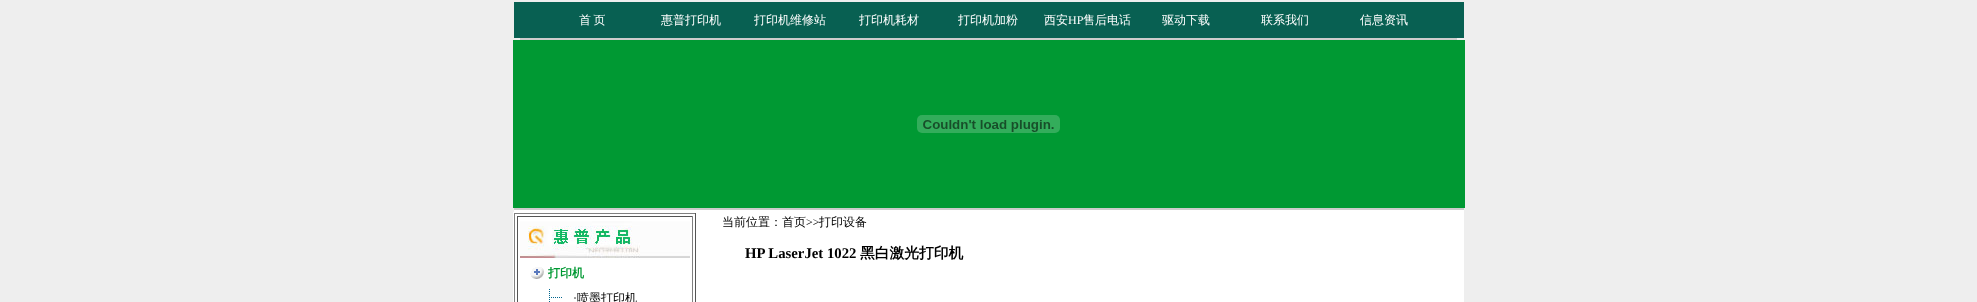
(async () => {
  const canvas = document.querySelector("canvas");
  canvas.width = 1977;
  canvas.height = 302;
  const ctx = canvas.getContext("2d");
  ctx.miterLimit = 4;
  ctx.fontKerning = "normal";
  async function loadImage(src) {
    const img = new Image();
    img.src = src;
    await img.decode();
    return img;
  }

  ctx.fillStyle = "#eeeeee";
  ctx.fillRect(0, 0, 1977, 302);
  for (const [x, y, w, h, color] of [
    [514, 2, 950, 36, "#086052"],
    [520, 38, 937, 2, "#cccccc"],
    [513, 40, 952, 168, "#009933"],
  ]) {
    ctx.fillStyle = color;
    ctx.fillRect(x, y, w, h);
  }
  ctx.drawImage(await loadImage("img/1.png"), 917, 115, 143, 18);
  for (const [x, y, w, h, color] of [
    [514, 208, 950, 2, "#cccccc"],
    [514, 210, 950, 2, "#ffffff"],
    [513, 212, 951, 90, "#ffffff"],
    [514, 213, 182, 1, "#808080"],
    [695, 213, 1, 89, "#555555"],
    [514, 213, 1, 89, "#808080"],
    [517, 216, 176, 1, "#555555"],
    [692, 216, 1, 86, "#808080"],
    [517, 216, 1, 86, "#555555"],
  ]) {
    ctx.fillStyle = color;
    ctx.fillRect(x, y, w, h);
  }
  ctx.drawImage(await loadImage("img/2.png"), 520, 221, 170, 37);
  ctx.drawImage(await loadImage("img/3.png"), 530, 267, 14, 12);
  ctx.drawImage(await loadImage("img/4.png"), 549, 289, 13, 13);
  ctx.wordSpacing = "-1px";
  ctx.font = "500 12px WenQuanYi Zen Hei";
  ctx.fillStyle = "#ffffff";
  ctx.fillText("首 页", 579, 24);
  ctx.wordSpacing = "0px";
  for (const [text, x, y] of [
    ["惠普打印机", 661, 24],
    ["打印机维修站", 754, 24],
    ["打印机耗材", 859, 24],
    ["打印机加粉", 958, 24],
    ["西安", 1044, 24],
  ]) {
    ctx.fillText(text, x, y);
  }
  ctx.font = "12px Liberation Serif";
  ctx.fillText("HP", 1068, 24);
  ctx.font = "500 12px WenQuanYi Zen Hei";
  for (const [text, x, y] of [
    ["售后电话", 1083, 24],
    ["驱动下载", 1162, 24],
    ["联系我们", 1261, 24],
    ["信息资讯", 1360, 24],
  ]) {
    ctx.fillText(text, x, y);
  }
  ctx.fillStyle = "#000000";
  ctx.fillText("当前位置：首页", 722, 226);
  ctx.font = "12px Liberation Serif";
  ctx.fillText(">>", 806, 226);
  ctx.font = "500 12px WenQuanYi Zen Hei";
  ctx.fillText("打印设备", 819, 226);
  ctx.font = "bold 14.75px Liberation Serif";
  ctx.fillText("HP LaserJet 1022", 745, 258);
  ctx.font = "bold 14.75px WenQuanYi Zen Hei";
  ctx.fillText("黑白激光打印机", 860, 258);
  ctx.font = "bold 12px WenQuanYi Zen Hei";
  ctx.fillStyle = "#009933";
  ctx.fillText("打印机", 548, 277);
  ctx.font = "12px Liberation Serif";
  ctx.fillStyle = "#000000";
  ctx.fillText("·", 573, 302);
  ctx.font = "500 12px WenQuanYi Zen Hei";
  ctx.fillText("喷墨打印机", 577, 302);
})();
